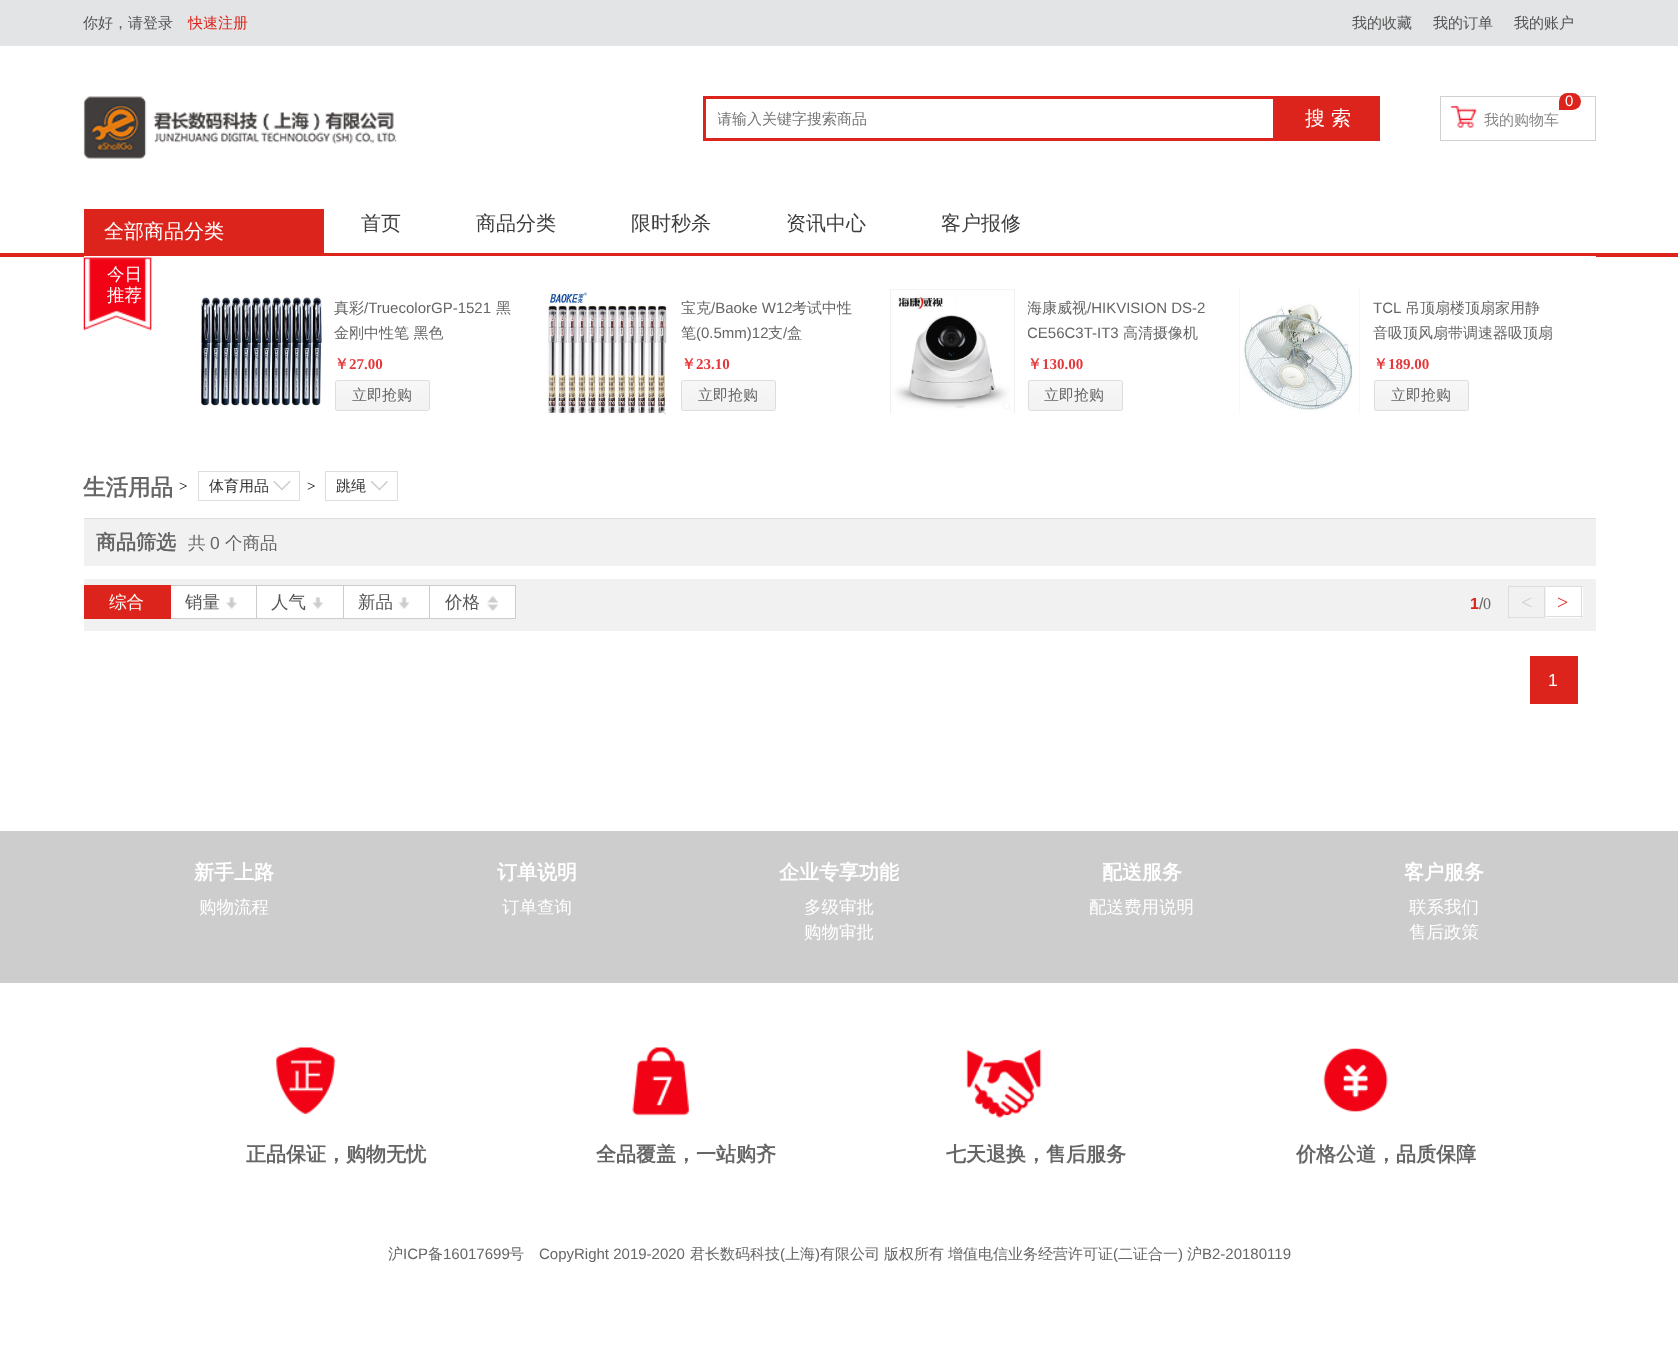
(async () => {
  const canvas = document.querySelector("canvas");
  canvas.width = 1678;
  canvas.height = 1359;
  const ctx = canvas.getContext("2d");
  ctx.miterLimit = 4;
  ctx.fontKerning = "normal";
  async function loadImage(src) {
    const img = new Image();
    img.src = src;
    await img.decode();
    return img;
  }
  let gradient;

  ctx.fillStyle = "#ffffff";
  ctx.fillRect(0, 0, 1678, 1359);
  ctx.fillStyle = "#e3e4e5";
  ctx.fillRect(0, 0, 1678, 46);
  ctx.drawImage(await loadImage("img/1.png"), 83, 96, 314, 63);
  ctx.strokeStyle = "#dc241c";
  ctx.lineWidth = 3;
  ctx.strokeRect(704.5, 97.5, 570, 42);
  ctx.fillStyle = "#dc241c";
  ctx.fillRect(1276, 96, 104, 45);
  ctx.strokeStyle = "#d1d1d1";
  ctx.lineWidth = 1;
  ctx.strokeRect(1440.5, 96.5, 155, 44);
  ctx.beginPath();
  ctx.roundRect(1559, 93, 22, 17, [8.5, 8.5, 8.5, 0]);
  ctx.fill();
  ctx.drawImage(await loadImage("img/2.png"), 1451, 106, 26, 22);
  for (const [x, y, w, h, color] of [
    [0, 253, 1678, 4, "#dc241c"],
    [84, 209, 240, 44, "#dc241c"],
    [84, 256, 1512, 1, "#ffffff"],
  ]) {
    ctx.fillStyle = color;
    ctx.fillRect(x, y, w, h);
  }
  ctx.drawImage(await loadImage("img/3.png"), 83, 257, 69, 74);
  ctx.drawImage(await loadImage("img/4.png"), 201, 297, 121, 110);
  ctx.save();
  ctx.beginPath();
  ctx.roundRect(335, 380, 95, 31, 2.5);
  ctx.clip();
  gradient = ctx.createLinearGradient(383, 381, 383, 410);
  gradient.addColorStop(0, "#f7f7f7");
  gradient.addColorStop(1, "#f2f2f2");
  ctx.fillStyle = gradient;
  ctx.fillRect(335, 381, 95, 29);
  ctx.restore();
  ctx.beginPath();
  ctx.roundRect(335.5, 380.5, 94, 30, 2);
  ctx.strokeStyle = "#dddddd";
  ctx.stroke();
  ctx.drawImage(await loadImage("img/5.png"), 547, 291, 120, 123);
  ctx.save();
  ctx.beginPath();
  ctx.roundRect(681, 380, 95, 31, 2.5);
  ctx.clip();
  gradient = ctx.createLinearGradient(729, 381, 729, 410);
  gradient.addColorStop(0, "#f7f7f7");
  gradient.addColorStop(1, "#f2f2f2");
  ctx.fillStyle = gradient;
  ctx.fillRect(681, 381, 95, 29);
  ctx.restore();
  ctx.beginPath();
  ctx.roundRect(681.5, 380.5, 94, 30, 2);
  ctx.stroke();
  ctx.drawImage(await loadImage("img/6.png"), 890, 289, 125, 125);
  ctx.save();
  ctx.beginPath();
  ctx.roundRect(1028, 380, 95, 31, 2.5);
  ctx.clip();
  gradient = ctx.createLinearGradient(1075, 381, 1075, 410);
  gradient.addColorStop(0, "#f7f7f7");
  gradient.addColorStop(1, "#f2f2f2");
  ctx.fillStyle = gradient;
  ctx.fillRect(1028, 381, 95, 29);
  ctx.restore();
  ctx.beginPath();
  ctx.roundRect(1028.5, 380.5, 94, 30, 2);
  ctx.stroke();
  ctx.drawImage(await loadImage("img/7.png"), 1239, 289, 121, 125);
  ctx.save();
  ctx.beginPath();
  ctx.roundRect(1374, 380, 95, 31, 2.5);
  ctx.clip();
  gradient = ctx.createLinearGradient(1421, 381, 1421, 410);
  gradient.addColorStop(0, "#f7f7f7");
  gradient.addColorStop(1, "#f2f2f2");
  ctx.fillStyle = gradient;
  ctx.fillRect(1374, 381, 95, 29);
  ctx.restore();
  ctx.beginPath();
  ctx.roundRect(1374.5, 380.5, 94, 30, 2);
  ctx.stroke();
  ctx.strokeRect(198.5, 471.5, 101, 29);
  ctx.drawImage(await loadImage("img/8.png"), 273, 481, 18, 10);
  ctx.strokeRect(325.5, 471.5, 72, 29);
  ctx.drawImage(await loadImage("img/9.png"), 371, 481, 17, 10);
  for (const [x, y, w, h, color] of [
    [84, 519, 1512, 47, "#f1f1f1"],
    [84, 518, 1512, 1, "#dfdfdf"],
    [84, 579, 1512, 52, "#f1f1f1"],
    [84, 585, 87, 34, "#dc241c"],
    [171, 586, 172, 32, "#ffffff"],
    [171, 585, 345, 1, "#cccccc"],
    [256, 585, 1, 34, "#cccccc"],
    [171, 618, 87, 1, "#cccccc"],
  ]) {
    ctx.fillStyle = color;
    ctx.fillRect(x, y, w, h);
  }
  ctx.drawImage(await loadImage("img/10.png"), 226, 597, 11, 12);
  ctx.fillRect(343, 585, 1, 34);
  ctx.fillRect(258, 618, 86, 1);
  ctx.drawImage(await loadImage("img/11.png"), 312, 597, 12, 12);
  for (const [x, y, w, h, color] of [
    [344, 586, 85, 32, "#ffffff"],
    [429, 585, 1, 34, "#cccccc"],
    [344, 618, 86, 1, "#cccccc"],
  ]) {
    ctx.fillStyle = color;
    ctx.fillRect(x, y, w, h);
  }
  ctx.drawImage(await loadImage("img/12.png"), 398, 597, 12, 12);
  for (const [x, y, w, h, color] of [
    [430, 586, 85, 32, "#ffffff"],
    [515, 585, 1, 34, "#cccccc"],
    [430, 618, 86, 1, "#cccccc"],
  ]) {
    ctx.fillStyle = color;
    ctx.fillRect(x, y, w, h);
  }
  ctx.drawImage(await loadImage("img/13.png"), 487, 596, 12, 16);
  ctx.strokeRect(1508.5, 586.5, 36, 31);
  for (const [x, y, w, h, color] of [
    [1546, 587, 37, 31, "#ffffff"],
    [1546, 586, 37, 1, "#dddddd"],
    [1581, 586, 1, 32, "#dddddd"],
    [1546, 616, 37, 1, "#dddddd"],
    [1530, 656, 48, 48, "#dc241c"],
    [0, 831, 1678, 152, "#cdcdcd"],
  ]) {
    ctx.fillStyle = color;
    ctx.fillRect(x, y, w, h);
  }
  ctx.drawImage(await loadImage("img/14.png"), 276, 1047, 60, 67);
  ctx.drawImage(await loadImage("img/15.png"), 632, 1047, 58, 69);
  ctx.drawImage(await loadImage("img/16.png"), 966, 1049, 76, 69);
  ctx.drawImage(await loadImage("img/17.png"), 1323, 1048, 65, 64);
  ctx.font = "500 15px WenQuanYi Zen Hei";
  ctx.fillStyle = "#555555";
  ctx.fillText("你好，请登录", 83, 28);
  ctx.fillStyle = "#dc241c";
  ctx.fillText("快速注册", 188, 28);
  ctx.fillStyle = "#555555";
  for (const [text, x, y] of [
    ["我的收藏", 1352, 28],
    ["我的订单", 1433, 28],
    ["我的账户", 1514, 28],
  ]) {
    ctx.fillText(text, x, y);
  }
  ctx.save();
  ctx.beginPath();
  ctx.rect(718, 109, 556, 21);
  ctx.clip();
  ctx.fillStyle = "#757575";
  ctx.fillText("请输入关键字搜索商品", 717, 124);
  ctx.restore();
  ctx.font = "500 20px WenQuanYi Zen Hei";
  ctx.fillStyle = "#ffffff";
  ctx.fillText("搜 索", 1305, 125);
  ctx.font = "15px Liberation Sans";
  ctx.fillText("0", 1565, 106);
  ctx.font = "500 15px WenQuanYi Zen Hei";
  ctx.fillStyle = "#888888";
  ctx.fillText("我的购物车", 1484, 125);
  ctx.font = "500 20px WenQuanYi Zen Hei";
  ctx.fillStyle = "#ffffff";
  ctx.fillText("全部商品分类", 104, 238);
  ctx.fillStyle = "#3e3e3e";
  for (const [text, x, y] of [
    ["首页", 361, 230],
    ["商品分类", 476, 230],
    ["限时秒杀", 631, 230],
    ["资讯中心", 786, 230],
    ["客户报修", 941, 230],
  ]) {
    ctx.fillText(text, x, y);
  }
  ctx.font = "500 17.5px WenQuanYi Zen Hei";
  ctx.fillStyle = "#ffffff";
  ctx.fillText("今日", 107, 280);
  ctx.fillText("推荐", 107, 301);
  ctx.font = "500 15px WenQuanYi Zen Hei";
  ctx.fillStyle = "#666666";
  ctx.fillText("真彩", 334, 313);
  ctx.font = "15px Liberation Sans";
  ctx.fillText("/TruecolorGP-1521", 364, 313);
  ctx.font = "500 15px WenQuanYi Zen Hei";
  ctx.fillText("黑", 496, 313);
  ctx.fillText("金刚中性笔 黑色", 334, 338);
  ctx.font = "bold 15px WenQuanYi Zen Hei";
  ctx.fillStyle = "#e4393c";
  ctx.fillText("￥", 334, 369);
  ctx.font = "bold 15px Liberation Serif";
  ctx.fillText("27.00", 349, 369);
  ctx.font = "500 15px WenQuanYi Zen Hei";
  ctx.fillStyle = "#666666";
  ctx.fillText("立即抢购", 352, 400);
  ctx.fillText("宝克", 681, 313);
  ctx.font = "15px Liberation Sans";
  ctx.fillText("/Baoke W12", 711, 313);
  ctx.font = "500 15px WenQuanYi Zen Hei";
  ctx.fillText("考试中性", 792, 313);
  ctx.fillText("笔", 681, 338);
  ctx.font = "15px Liberation Sans";
  ctx.fillText("(0.5mm)12", 696, 338);
  ctx.font = "500 15px WenQuanYi Zen Hei";
  ctx.fillText("支", 768, 338);
  ctx.font = "15px Liberation Sans";
  ctx.fillText("/", 783, 338);
  ctx.font = "500 15px WenQuanYi Zen Hei";
  ctx.fillText("盒", 787, 338);
  ctx.font = "bold 15px WenQuanYi Zen Hei";
  ctx.fillStyle = "#e4393c";
  ctx.fillText("￥", 681, 369);
  ctx.font = "bold 15px Liberation Serif";
  ctx.fillText("23.10", 696, 369);
  ctx.font = "500 15px WenQuanYi Zen Hei";
  ctx.fillStyle = "#666666";
  ctx.fillText("立即抢购", 698, 400);
  ctx.save();
  ctx.beginPath();
  ctx.rect(1028, 289, 181, 56);
  ctx.clip();
  ctx.fillText("海康威视", 1027, 313);
  ctx.restore();
  ctx.font = "15px Liberation Sans";
  ctx.fillText("/HIKVISION DS-2", 1087, 313);
  ctx.save();
  ctx.beginPath();
  ctx.rect(1028, 289, 181, 56);
  ctx.clip();
  ctx.fillText("CE56C3T-IT3", 1027, 338);
  ctx.restore();
  ctx.font = "500 15px WenQuanYi Zen Hei";
  ctx.fillText("高清摄像机", 1123, 338);
  ctx.font = "bold 15px WenQuanYi Zen Hei";
  ctx.fillStyle = "#e4393c";
  ctx.fillText("￥", 1027, 369);
  ctx.font = "bold 15px Liberation Serif";
  ctx.fillText("130.00", 1042, 369);
  ctx.font = "500 15px WenQuanYi Zen Hei";
  ctx.fillStyle = "#666666";
  ctx.fillText("立即抢购", 1044, 400);
  ctx.font = "15px Liberation Sans";
  ctx.fillText("TCL", 1373, 313);
  ctx.font = "500 15px WenQuanYi Zen Hei";
  ctx.fillText("吊顶扇楼顶扇家用静", 1405, 313);
  ctx.fillText("音吸顶风扇带调速器吸顶扇", 1373, 338);
  ctx.font = "bold 15px WenQuanYi Zen Hei";
  ctx.fillStyle = "#e4393c";
  ctx.fillText("￥", 1373, 369);
  ctx.font = "bold 15px Liberation Serif";
  ctx.fillText("189.00", 1388, 369);
  ctx.font = "500 15px WenQuanYi Zen Hei";
  ctx.fillStyle = "#666666";
  ctx.fillText("立即抢购", 1391, 400);
  ctx.font = "bold 22.5px WenQuanYi Zen Hei";
  ctx.fillText("生活用品", 83, 495);
  ctx.font = "15px Liberation Serif";
  ctx.fillStyle = "#000000";
  ctx.fillText(">", 179, 491);
  ctx.font = "500 15px WenQuanYi Zen Hei";
  ctx.fillStyle = "#333333";
  ctx.fillText("体育用品", 209, 491);
  ctx.font = "15px Liberation Serif";
  ctx.fillStyle = "#000000";
  ctx.fillText(">", 307, 491);
  ctx.font = "500 15px WenQuanYi Zen Hei";
  ctx.fillStyle = "#333333";
  ctx.fillText("跳绳", 336, 491);
  ctx.font = "bold 20px WenQuanYi Zen Hei";
  ctx.fillStyle = "#666666";
  ctx.fillText("商品筛选", 96, 549);
  ctx.font = "500 17.5px WenQuanYi Zen Hei";
  ctx.fillText("共", 188, 549);
  ctx.font = "17.5px Liberation Sans";
  ctx.fillText("0", 210, 549);
  ctx.font = "500 17.5px WenQuanYi Zen Hei";
  ctx.fillText("个商品", 225, 549);
  ctx.fillStyle = "#ffffff";
  ctx.fillText("综合", 109, 608);
  ctx.fillStyle = "#555555";
  for (const [text, x, y] of [
    ["销量", 185, 608],
    ["人气", 271, 608],
    ["新品", 358, 608],
    ["价格", 445, 608],
  ]) {
    ctx.fillText(text, x, y);
  }
  ctx.font = "bold 16px Liberation Sans";
  ctx.fillStyle = "#dc241c";
  ctx.fillText("1", 1470, 609);
  ctx.font = "16px Liberation Sans";
  ctx.fillStyle = "#666666";
  ctx.fillText("/", 1479, 609);
  ctx.font = "16px Liberation Serif";
  ctx.fillText("0", 1483, 609);
  ctx.font = "20px Liberation Serif";
  ctx.fillStyle = "#cccccc";
  ctx.fillText("<", 1521, 609);
  ctx.fillStyle = "#dc241c";
  ctx.fillText(">", 1557, 609);
  ctx.font = "17.5px Liberation Sans";
  ctx.fillStyle = "#ffffff";
  ctx.fillText("1", 1548, 686);
  ctx.font = "bold 20px WenQuanYi Zen Hei";
  ctx.fillText("新手上路", 194, 879);
  ctx.font = "500 17.5px WenQuanYi Zen Hei";
  ctx.fillText("购物流程", 199, 913);
  ctx.font = "bold 20px WenQuanYi Zen Hei";
  ctx.fillText("订单说明", 497, 879);
  ctx.font = "500 17.5px WenQuanYi Zen Hei";
  ctx.fillText("订单查询", 502, 913);
  ctx.font = "bold 20px WenQuanYi Zen Hei";
  ctx.fillText("企业专享功能", 779, 879);
  ctx.font = "500 17.5px WenQuanYi Zen Hei";
  ctx.fillText("多级审批", 804, 913);
  ctx.fillText("购物审批", 804, 938);
  ctx.font = "bold 20px WenQuanYi Zen Hei";
  ctx.fillText("配送服务", 1102, 879);
  ctx.font = "500 17.5px WenQuanYi Zen Hei";
  ctx.fillText("配送费用说明", 1089, 913);
  ctx.font = "bold 20px WenQuanYi Zen Hei";
  ctx.fillText("客户服务", 1404, 879);
  ctx.font = "500 17.5px WenQuanYi Zen Hei";
  ctx.fillText("联系我们", 1409, 913);
  ctx.fillText("售后政策", 1409, 938);
  ctx.font = "bold 20px WenQuanYi Zen Hei";
  ctx.fillStyle = "#666666";
  for (const [text, x, y] of [
    ["正品保证，购物无忧", 246, 1161],
    ["全品覆盖，一站购齐", 596, 1161],
    ["七天退换，售后服务", 946, 1161],
    ["价格公道，品质保障", 1296, 1161],
  ]) {
    ctx.fillText(text, x, y);
  }
  ctx.font = "500 15px WenQuanYi Zen Hei";
  ctx.fillText("沪", 388, 1259);
  ctx.font = "15px Liberation Sans";
  ctx.fillText("ICP", 403, 1259);
  ctx.font = "500 15px WenQuanYi Zen Hei";
  ctx.fillText("备", 428, 1259);
  ctx.font = "15px Liberation Sans";
  ctx.fillText("16017699", 443, 1259);
  ctx.font = "500 15px WenQuanYi Zen Hei";
  ctx.fillText("号", 509, 1259);
  ctx.font = "15px Liberation Sans";
  ctx.fillText("CopyRight 2019-2020", 539, 1259);
  ctx.font = "500 15px WenQuanYi Zen Hei";
  ctx.fillText("君长数码科技", 690, 1259);
  ctx.font = "15px Liberation Sans";
  ctx.fillText("(", 780, 1259);
  ctx.font = "500 15px WenQuanYi Zen Hei";
  ctx.fillText("上海", 785, 1259);
  ctx.font = "15px Liberation Sans";
  ctx.fillText(")", 815, 1259);
  ctx.font = "500 15px WenQuanYi Zen Hei";
  for (const [text, x, y] of [
    ["有限公司", 820, 1259],
    ["版权所有", 884, 1259],
    ["增值电信业务经营许可证", 948, 1259],
  ]) {
    ctx.fillText(text, x, y);
  }
  ctx.font = "15px Liberation Sans";
  ctx.fillText("(", 1113, 1259);
  ctx.font = "500 15px WenQuanYi Zen Hei";
  ctx.fillText("二证合一", 1118, 1259);
  ctx.font = "15px Liberation Sans";
  ctx.fillText(")", 1178, 1259);
  ctx.font = "500 15px WenQuanYi Zen Hei";
  ctx.fillText("沪", 1187, 1259);
  ctx.font = "15px Liberation Sans";
  ctx.fillText("B2-20180119", 1202, 1259);
})();
